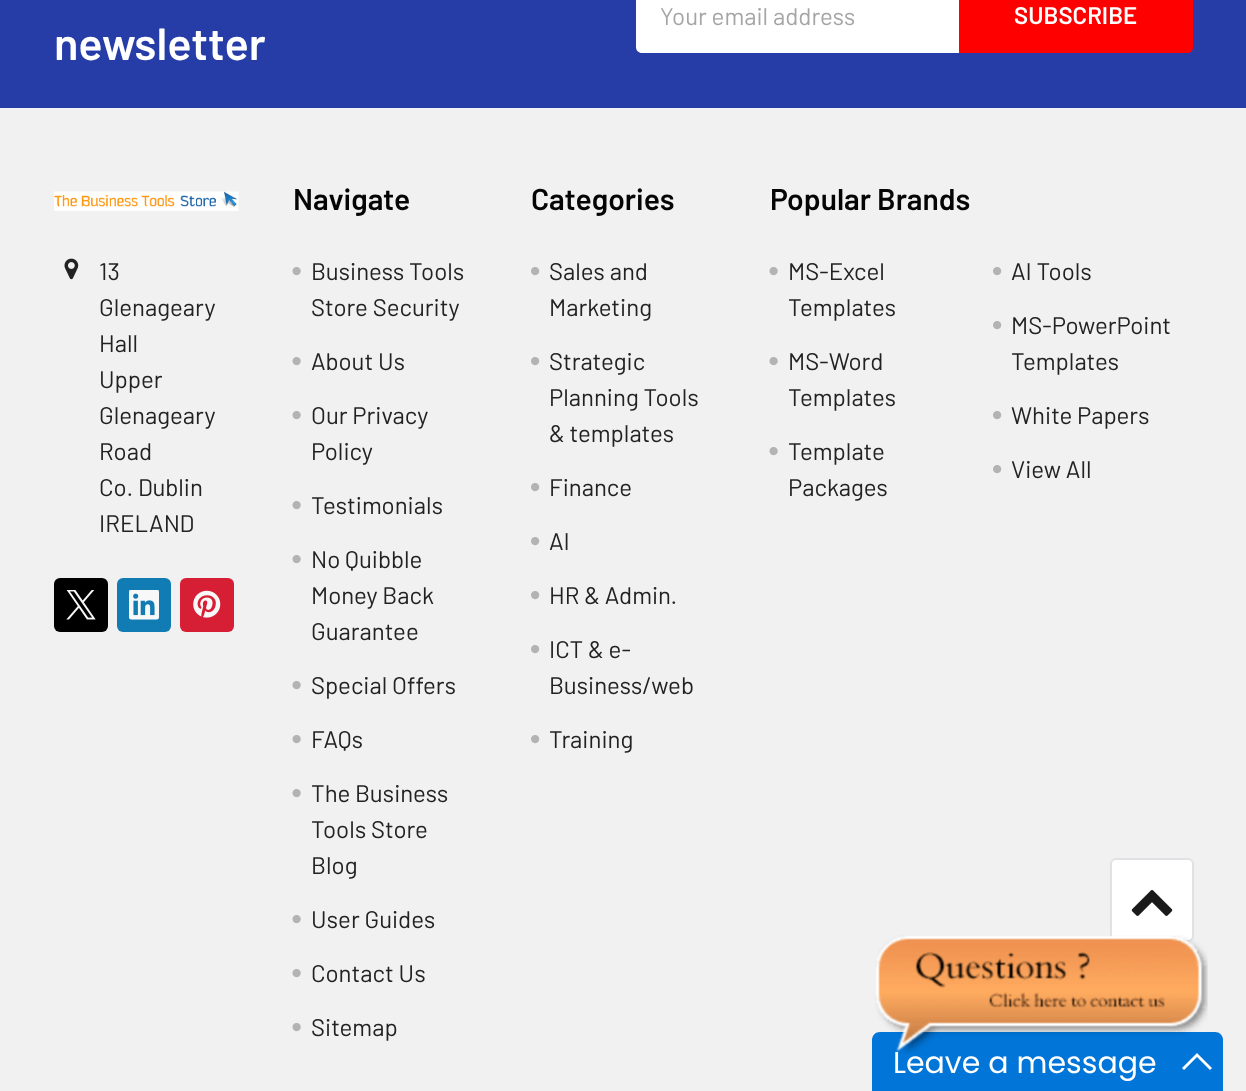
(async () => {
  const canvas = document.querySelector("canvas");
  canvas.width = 1246;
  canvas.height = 1091;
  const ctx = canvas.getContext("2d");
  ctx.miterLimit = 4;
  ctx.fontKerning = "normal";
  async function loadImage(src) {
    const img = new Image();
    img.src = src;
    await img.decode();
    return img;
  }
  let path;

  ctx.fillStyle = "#f1f1f2";
  ctx.fillRect(0, 0, 1246, 1091);
  ctx.fillStyle = "#263da8";
  ctx.fillRect(0, 0, 1246, 108);
  ctx.fillStyle = "#ffffff";
  path = new Path2D("M642-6H959V53H642C638.5 53 636 50.5 636 47V0C636-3.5 638.5-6 642-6Z");
  ctx.fill(path);
  ctx.fillStyle = "#ff0000";
  path = new Path2D("M960-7H1187C1190-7 1192-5 1192-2V47C1192 50 1190 52 1187 52H960Z");
  ctx.fill(path);
  ctx.strokeStyle = "#ff0000";
  ctx.lineWidth = 2;
  ctx.stroke(path);
  ctx.drawImage(await loadImage("img/1.png"), 54, 191, 185, 20);
  ctx.drawImage(await loadImage("img/2.png"), 64, 258, 15, 22);
  ctx.fillStyle = "#000000";
  ctx.beginPath();
  ctx.roundRect(54, 578, 54, 54, 6);
  ctx.fill();
  ctx.drawImage(await loadImage("img/3.png"), 66, 590, 30, 30);
  ctx.fillStyle = "#117cb3";
  ctx.beginPath();
  ctx.roundRect(117, 578, 54, 54, 6);
  ctx.fill();
  ctx.drawImage(await loadImage("img/4.png"), 129, 590, 30, 30);
  ctx.fillStyle = "#d61f35";
  ctx.beginPath();
  ctx.roundRect(180, 578, 54, 54, 6);
  ctx.fill();
  ctx.drawImage(await loadImage("img/5.png"), 193, 590, 28, 28);
  ctx.drawImage(await loadImage("img/6.png"), 292, 267, 9, 9);
  ctx.drawImage(await loadImage("img/6.png"), 292, 357, 9, 9);
  ctx.drawImage(await loadImage("img/6.png"), 292, 411, 9, 9);
  ctx.drawImage(await loadImage("img/6.png"), 292, 501, 9, 9);
  ctx.drawImage(await loadImage("img/6.png"), 292, 555, 9, 9);
  ctx.drawImage(await loadImage("img/6.png"), 292, 681, 9, 9);
  ctx.drawImage(await loadImage("img/6.png"), 292, 735, 9, 9);
  ctx.drawImage(await loadImage("img/6.png"), 292, 789, 9, 9);
  ctx.drawImage(await loadImage("img/6.png"), 292, 915, 9, 9);
  ctx.drawImage(await loadImage("img/6.png"), 292, 969, 9, 9);
  ctx.drawImage(await loadImage("img/6.png"), 292, 1023, 9, 9);
  ctx.drawImage(await loadImage("img/7.png"), 531, 267, 9, 9);
  ctx.drawImage(await loadImage("img/7.png"), 531, 357, 9, 9);
  ctx.drawImage(await loadImage("img/7.png"), 531, 483, 9, 9);
  ctx.drawImage(await loadImage("img/7.png"), 531, 537, 9, 9);
  ctx.drawImage(await loadImage("img/7.png"), 531, 591, 9, 9);
  ctx.drawImage(await loadImage("img/7.png"), 531, 645, 9, 9);
  ctx.drawImage(await loadImage("img/7.png"), 531, 735, 9, 9);
  ctx.drawImage(await loadImage("img/6.png"), 769, 267, 9, 9);
  ctx.drawImage(await loadImage("img/7.png"), 993, 267, 9, 9);
  ctx.drawImage(await loadImage("img/7.png"), 993, 321, 9, 9);
  ctx.drawImage(await loadImage("img/6.png"), 769, 357, 9, 9);
  ctx.drawImage(await loadImage("img/7.png"), 993, 411, 9, 9);
  ctx.drawImage(await loadImage("img/6.png"), 769, 447, 9, 9);
  ctx.drawImage(await loadImage("img/7.png"), 993, 465, 9, 9);
  ctx.fillStyle = "#ffffff";
  ctx.beginPath();
  ctx.roundRect(1111, 859, 82, 82, 5);
  ctx.fill();
  ctx.strokeStyle = "#e0e1e4";
  ctx.stroke();
  ctx.drawImage(await loadImage("img/8.png"), 1131, 890, 42, 26);
  ctx.fillStyle = "#0275d8";
  path = new Path2D("M880 1032H1215C1219.5 1032 1223 1035.5 1223 1040V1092H872V1040C872 1035.5 875.5 1032 880 1032Z");
  ctx.fill(path);
  ctx.fillStyle = "#ffffff";
  path = new Path2D("M1197 1053L1212 1068L1210 1070L1197 1057L1184 1070L1182 1068Z");
  ctx.fill(path);
  ctx.font = "24px Barlow";
  ctx.fillStyle = "#a5a5a5";
  ctx.fillText("Your email address", 660, 25);
  ctx.font = "600 24px Barlow";
  ctx.fillStyle = "#ffffff";
  ctx.fillText("SUBSCRIBE", 1014, 24);
  ctx.font = "600 45px Barlow";
  ctx.fillText("newsletter", 54, 60);
  ctx.font = "24px Barlow";
  ctx.fillStyle = "#222222";
  for (const [text, x, y] of [
    ["13", 99, 280],
    ["Glenageary", 99, 316],
    ["Hall", 99, 352],
    ["Upper", 99, 388],
    ["Glenageary", 99, 424],
    ["Road", 99, 460],
    ["Co. Dublin", 99, 496],
    ["IRELAND", 99, 532],
  ]) {
    ctx.fillText(text, x, y);
  }
  ctx.font = "600 30px Barlow";
  ctx.fillStyle = "#050505";
  ctx.fillText("Navigate", 293, 210);
  ctx.font = "24px Barlow";
  ctx.fillStyle = "#222222";
  for (const [text, x, y] of [
    ["Business Tools", 311, 280],
    ["Store Security", 311, 316],
    ["About Us", 311, 370],
    ["Our Privacy", 311, 424],
    ["Policy", 311, 460],
    ["Testimonials", 311, 514],
    ["No Quibble", 311, 568],
    ["Money Back", 311, 604],
    ["Guarantee", 311, 640],
    ["Special Offers", 311, 694],
    ["FAQs", 311, 748],
    ["The Business", 311, 802],
    ["Tools Store", 311, 838],
    ["Blog", 311, 874],
    ["User Guides", 311, 928],
    ["Contact Us", 311, 982],
    ["Sitemap", 311, 1036],
  ]) {
    ctx.fillText(text, x, y);
  }
  ctx.font = "600 30px Barlow";
  ctx.fillStyle = "#050505";
  ctx.fillText("Categories", 531, 210);
  ctx.font = "24px Barlow";
  ctx.fillStyle = "#222222";
  for (const [text, x, y] of [
    ["Sales and", 549, 280],
    ["Marketing", 549, 316],
    ["Strategic", 549, 370],
    ["Planning Tools", 549, 406],
    ["& templates", 549, 442],
    ["Finance", 549, 496],
    ["AI", 549, 550],
    ["HR & Admin.", 549, 604],
    ["ICT & e-", 549, 658],
    ["Business/web", 549, 694],
    ["Training", 549, 748],
  ]) {
    ctx.fillText(text, x, y);
  }
  ctx.font = "600 30px Barlow";
  ctx.fillStyle = "#050505";
  ctx.fillText("Popular Brands", 770, 210);
  ctx.font = "24px Barlow";
  ctx.fillStyle = "#222222";
  for (const [text, x, y] of [
    ["MS-Excel", 788, 280],
    ["Templates", 788, 316],
    ["AI Tools", 1011, 280],
    ["MS-PowerPoint", 1011, 334],
    ["Templates", 1011, 370],
    ["MS-Word", 788, 370],
    ["Templates", 788, 406],
    ["White Papers", 1011, 424],
    ["Template", 788, 460],
    ["Packages", 788, 496],
    ["View All", 1011, 478],
  ]) {
    ctx.fillText(text, x, y);
  }
  ctx.font = "30px Poppins";
  ctx.fillStyle = "#ffffff";
  ctx.fillText("Leave a message", 893, 1073);
  ctx.drawImage(await loadImage("img/9.png"), 875, 935, 333, 119);
})();
